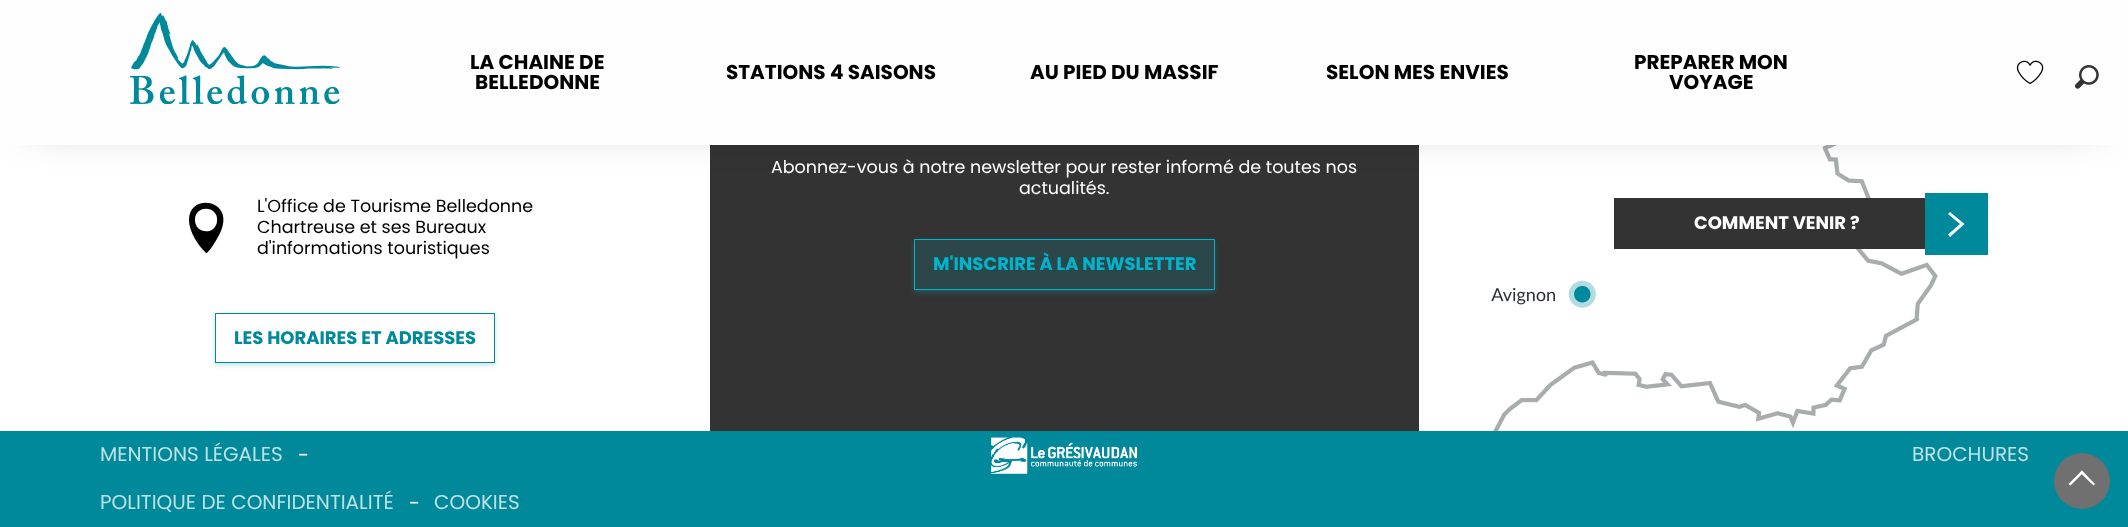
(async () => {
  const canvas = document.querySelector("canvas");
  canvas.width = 2128;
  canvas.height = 527;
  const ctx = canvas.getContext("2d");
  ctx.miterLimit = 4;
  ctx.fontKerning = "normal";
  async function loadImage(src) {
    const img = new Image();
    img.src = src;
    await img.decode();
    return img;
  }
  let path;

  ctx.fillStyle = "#ffffff";
  ctx.fillRect(0, 0, 2128, 527);
  ctx.fillStyle = "#333333";
  ctx.fillRect(710, 145, 709, 286);
  ctx.drawImage(await loadImage("img/4.png"), 1491, 145, 447, 286);
  ctx.fillStyle = "rgba(0, 0, 0, 0.5)";
  ctx.filter = "blur(25px)";
  ctx.beginPath();
  ctx.rect(31, 31, 2067, 83);
  ctx.fill();
  ctx.filter = "none";
  ctx.fillStyle = "#fefefe";
  ctx.fillRect(0, 0, 2128, 145);
  ctx.drawImage(await loadImage("img/1.png"), 130, 13, 210, 91);
  ctx.drawImage(await loadImage("img/2.png"), 2016, 60, 28, 24);
  ctx.drawImage(await loadImage("img/3.png"), 2075, 65, 24, 24);
  ctx.fillStyle = "#000000";
  path = new Path2D("M207 253H206C198 245 189 232 189 220C189 191 240 200 218 237C215 242 212 248 207 253ZM195 219C194 234 216 236 217 221C219 206 196 204 195 219Z");
  ctx.fill(path);
  ctx.save();
  path = new Path2D("M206 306H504V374H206ZM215 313H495V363H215Z");
  ctx.clip(path, "evenodd");
  ctx.fillStyle = "rgba(0, 136, 155, 0.25)";
  ctx.filter = "blur(2.5px)";
  ctx.beginPath();
  ctx.rect(215, 315, 280, 50);
  ctx.fill();
  ctx.filter = "none";
  ctx.restore();
  ctx.strokeStyle = "#00889b";
  ctx.strokeRect(215.5, 313.5, 279, 49);
  ctx.fillStyle = "rgba(0, 181, 206, 0.25)";
  ctx.filter = "blur(2.5px)";
  ctx.beginPath();
  ctx.rect(914, 241, 301, 52);
  ctx.fill();
  ctx.filter = "none";
  ctx.fillStyle = "#2b474a";
  ctx.beginPath();
  ctx.rect(914.5, 239.5, 300, 50);
  ctx.fill();
  ctx.strokeStyle = "#00b5ce";
  ctx.stroke();
  ctx.fillStyle = "#333333";
  ctx.fillRect(1614, 198, 311, 51);
  ctx.fillStyle = "#00889b";
  ctx.fillRect(1925, 193, 63, 62);
  ctx.fillStyle = "#fefefe";
  path = new Path2D("M1960 224L1948 214L1950 212L1964.5 224L1950 237L1948 234.5Z");
  ctx.fill(path);
  ctx.fillStyle = "#00889b";
  ctx.fillRect(0, 431, 2128, 96);
  ctx.drawImage(await loadImage("img/5.png"), 991, 437, 147, 37);
  ctx.fillStyle = "#707070";
  ctx.beginPath();
  ctx.arc(2082, 481, 28, 0, Math.PI * 2);
  ctx.fill();
  ctx.fillStyle = "#ffffff";
  path = new Path2D("M2082 470.5L2095 484L2093.5 485.5L2080 472.5Z");
  ctx.fill(path);
  path = new Path2D("M2082 470.5L2083.5 472.5L2070.5 485.5L2068.5 484Z");
  ctx.fill(path);
  ctx.font = "bold 20px Poppins";
  ctx.fillStyle = "#000000";
  for (const [text, x, y] of [
    ["LA CHAINE DE", 470, 69],
    ["BELLEDONNE", 475, 89],
    ["STATIONS 4 SAISONS", 726, 79],
    ["AU PIED DU MASSIF", 1030, 79],
    ["SELON MES ENVIES", 1326, 79],
    ["PREPARER MON", 1634, 69],
    ["VOYAGE", 1669, 89],
  ]) {
    ctx.fillText(text, x, y);
  }
  ctx.font = "17.5px Poppins";
  for (const [text, x, y] of [
    ["L'Office de Tourisme Belledonne", 257, 212],
    ["Chartreuse et ses Bureaux", 257, 233],
    ["d'informations touristiques", 257, 254],
  ]) {
    ctx.fillText(text, x, y);
  }
  ctx.font = "bold 18px Poppins";
  ctx.fillStyle = "#00889b";
  ctx.fillText("LES HORAIRES ET ADRESSES", 234, 344);
  ctx.font = "17.5px Poppins";
  ctx.fillStyle = "#fefefe";
  ctx.fillText("Abonnez-vous à notre newsletter pour rester informé de toutes nos", 771, 173);
  ctx.fillText("actualités.", 1019, 194);
  ctx.font = "bold 18px Poppins";
  ctx.fillStyle = "#00b5ce";
  ctx.fillText("M'INSCRIRE À LA NEWSLETTER", 933, 270);
  ctx.fillStyle = "#fefefe";
  ctx.fillText("COMMENT VENIR ?", 1694, 229);
  ctx.font = "20px Poppins";
  ctx.fillStyle = "#bfe1e5";
  ctx.fillText("MENTIONS LÉGALES", 100, 461);
  ctx.fillStyle = "#fefefe";
  ctx.fillText("-", 298, 462);
  ctx.fillStyle = "#bfe1e5";
  ctx.fillText("POLITIQUE DE CONFIDENTIALITÉ", 100, 509);
  ctx.fillStyle = "#fefefe";
  ctx.fillText("-", 409, 510);
  ctx.fillStyle = "#bfe1e5";
  ctx.fillText("COOKIES", 434, 509);
  ctx.fillText("BROCHURES", 1912, 461);
})();
